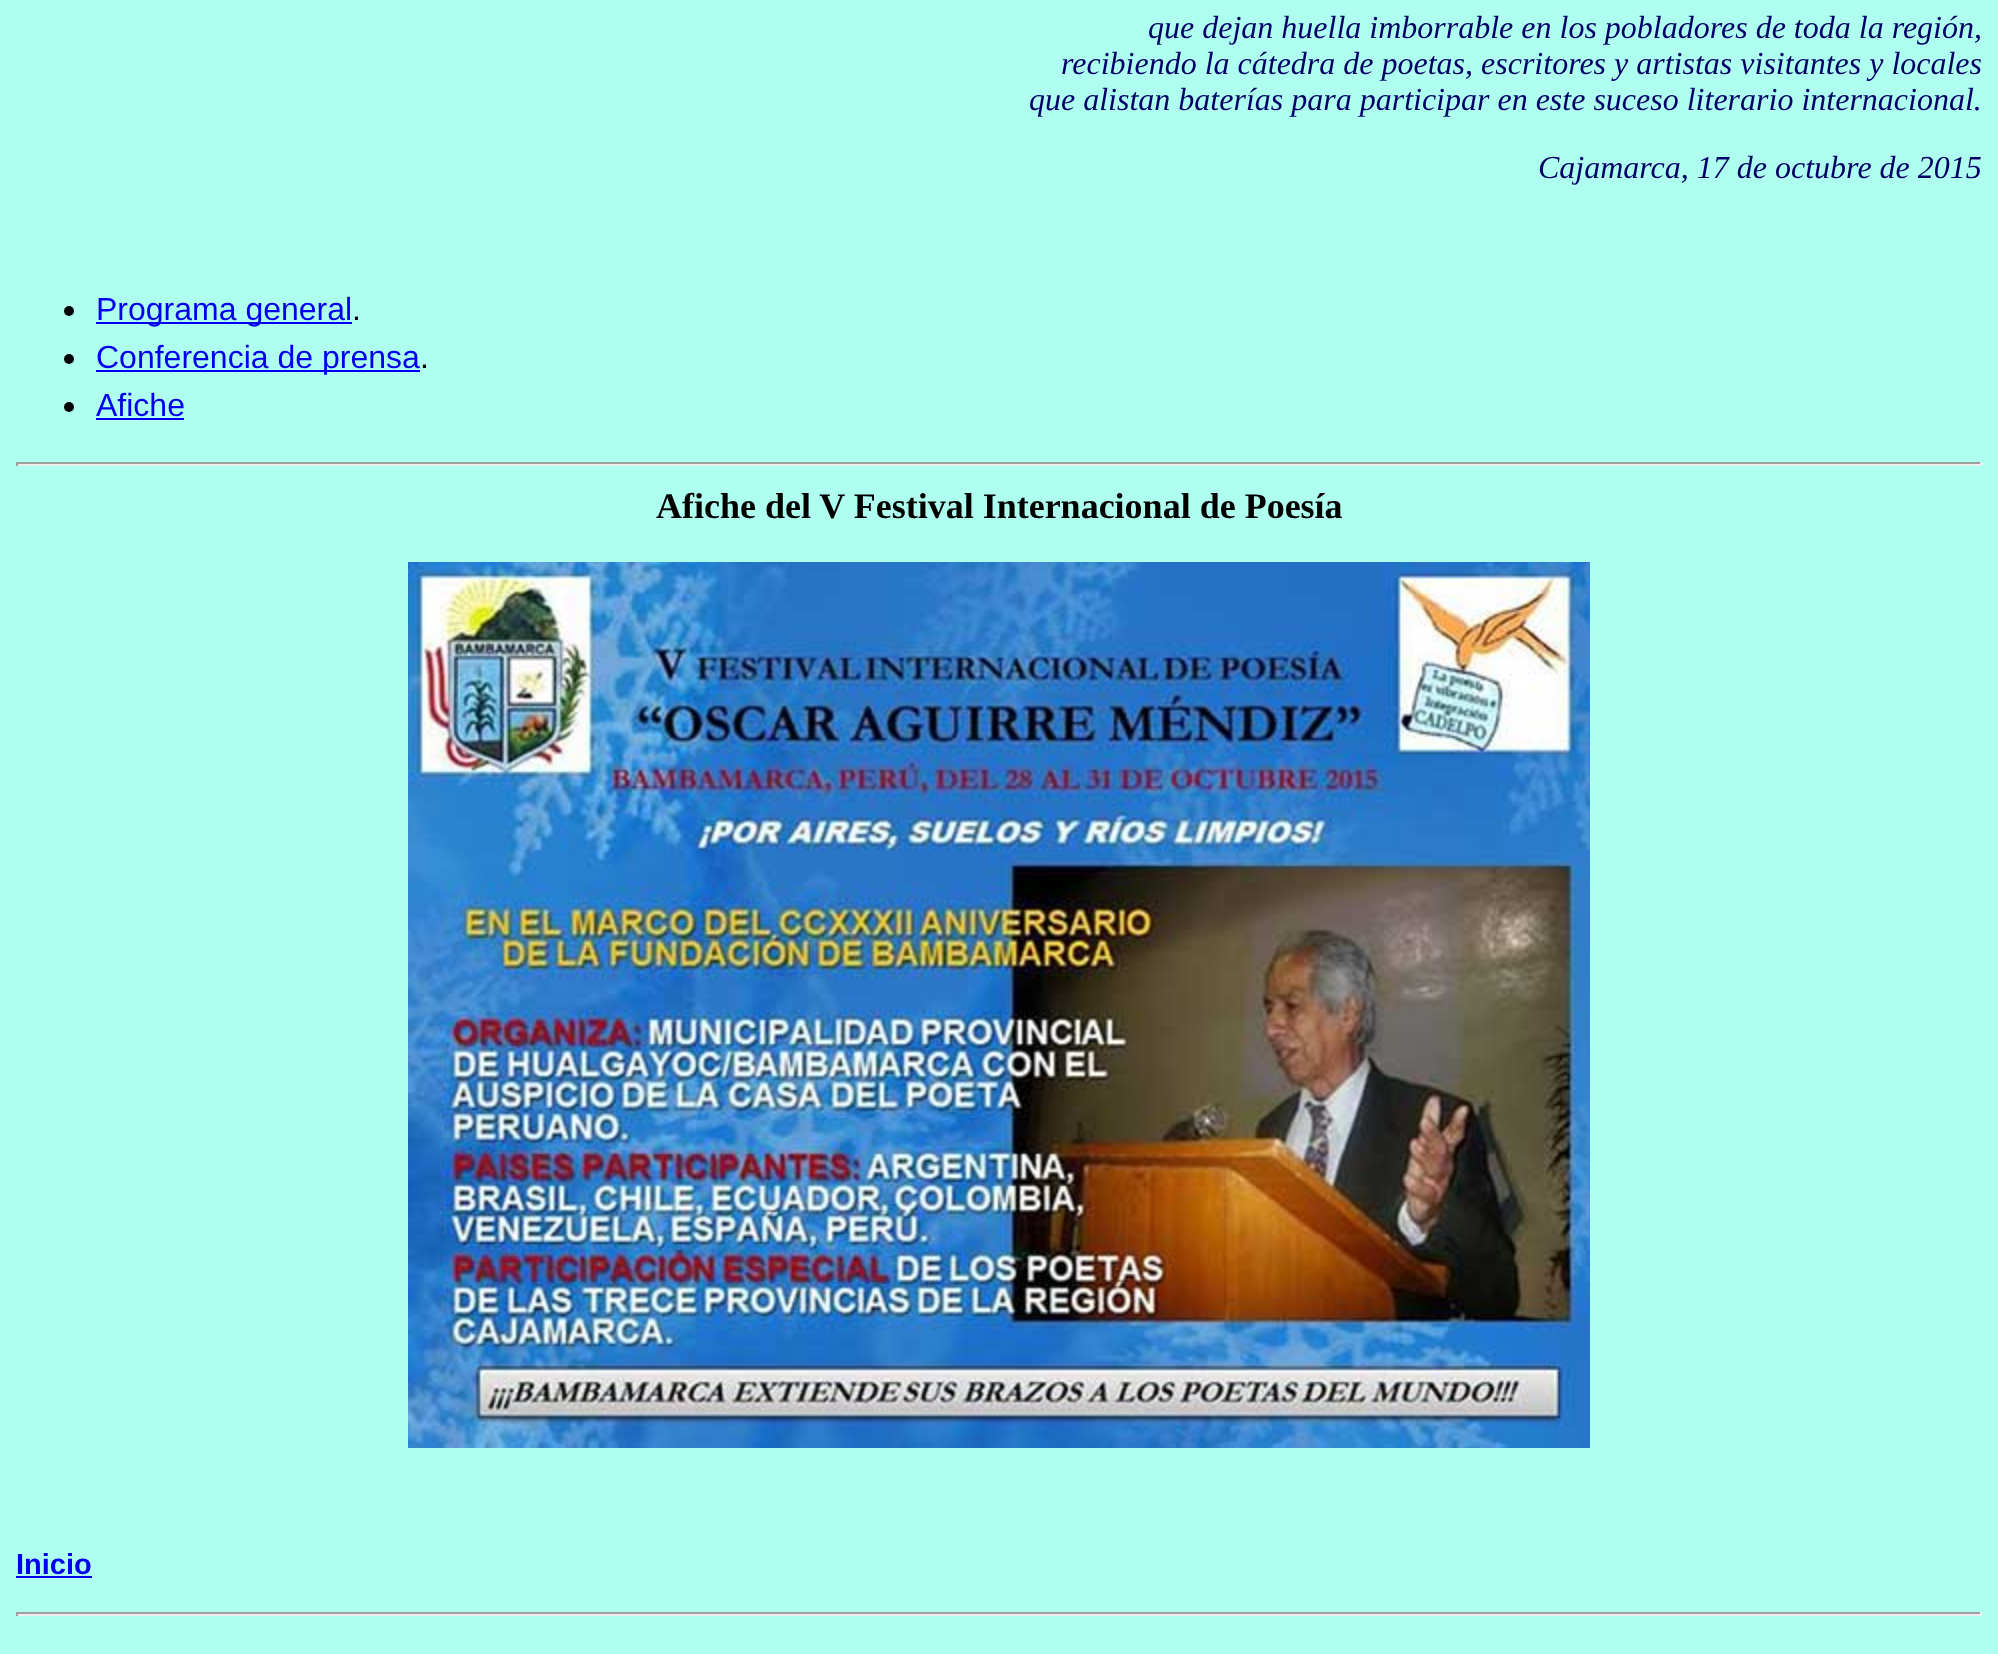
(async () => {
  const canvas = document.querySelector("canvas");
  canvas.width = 1998;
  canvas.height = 1654;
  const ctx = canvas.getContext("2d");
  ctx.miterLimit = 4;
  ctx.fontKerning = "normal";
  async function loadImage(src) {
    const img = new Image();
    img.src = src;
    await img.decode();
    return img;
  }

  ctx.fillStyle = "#aeffef";
  ctx.fillRect(0, 0, 1998, 1654);
  ctx.fillStyle = "#000000";
  ctx.beginPath();
  ctx.arc(69, 311, 5, 0, Math.PI * 2);
  ctx.fill();
  ctx.fillStyle = "#0000ee";
  ctx.fillRect(96, 322, 256, 2);
  ctx.fillStyle = "#000000";
  ctx.beginPath();
  ctx.arc(69, 359, 5, 0, Math.PI * 2);
  ctx.fill();
  ctx.fillStyle = "#0000ee";
  ctx.fillRect(96, 370, 324, 2);
  ctx.fillStyle = "#000000";
  ctx.beginPath();
  ctx.arc(69, 407, 5, 0, Math.PI * 2);
  ctx.fill();
  for (const [x, y, w, h, color] of [
    [96, 418, 88, 2, "#0000ee"],
    [16, 462, 1966, 2, "#9f9f9f"],
    [1980, 462, 2, 4, "#eeeeee"],
    [16, 464, 1966, 2, "#eeeeee"],
    [16, 462, 2, 4, "#9f9f9f"],
  ]) {
    ctx.fillStyle = color;
    ctx.fillRect(x, y, w, h);
  }
  ctx.drawImage(await loadImage("img/1.png"), 408, 562, 1182, 886);
  for (const [x, y, w, h, color] of [
    [16, 1576, 76, 2, "#0000ee"],
    [16, 1612, 1966, 2, "#9f9f9f"],
    [1980, 1612, 2, 4, "#eeeeee"],
    [16, 1614, 1966, 2, "#eeeeee"],
    [16, 1612, 2, 4, "#9f9f9f"],
  ]) {
    ctx.fillStyle = color;
    ctx.fillRect(x, y, w, h);
  }
  ctx.font = "italic 32px Liberation Serif";
  ctx.fillStyle = "#000066";
  for (const [text, x, y] of [
    ["que dejan huella imborrable en los pobladores de toda la región,", 1148, 38],
    ["recibiendo la cátedra de poetas, escritores y artistas visitantes y locales", 1061, 74],
    ["que alistan baterías para participar en este suceso literario internacional.", 1029, 110],
    ["Cajamarca, 17 de octubre de 2015", 1538, 178],
  ]) {
    ctx.fillText(text, x, y);
  }
  ctx.font = "32px Liberation Sans";
  ctx.fillStyle = "#0000ee";
  ctx.fillText("Programa general", 96, 320);
  ctx.fillStyle = "#000000";
  ctx.fillText(".", 352, 320);
  ctx.fillStyle = "#0000ee";
  ctx.fillText("Conferencia de prensa", 96, 368);
  ctx.fillStyle = "#000000";
  ctx.fillText(".", 420, 368);
  ctx.fillStyle = "#0000ee";
  ctx.fillText("Afiche", 96, 416);
  ctx.font = "bold 36px Liberation Serif";
  ctx.fillStyle = "#000000";
  ctx.fillText("Afiche del V Festival Internacional de Poesía", 656, 518);
  ctx.font = "bold 29px Liberation Sans";
  ctx.fillStyle = "#0000ee";
  ctx.fillText("Inicio", 16, 1574);
})();
